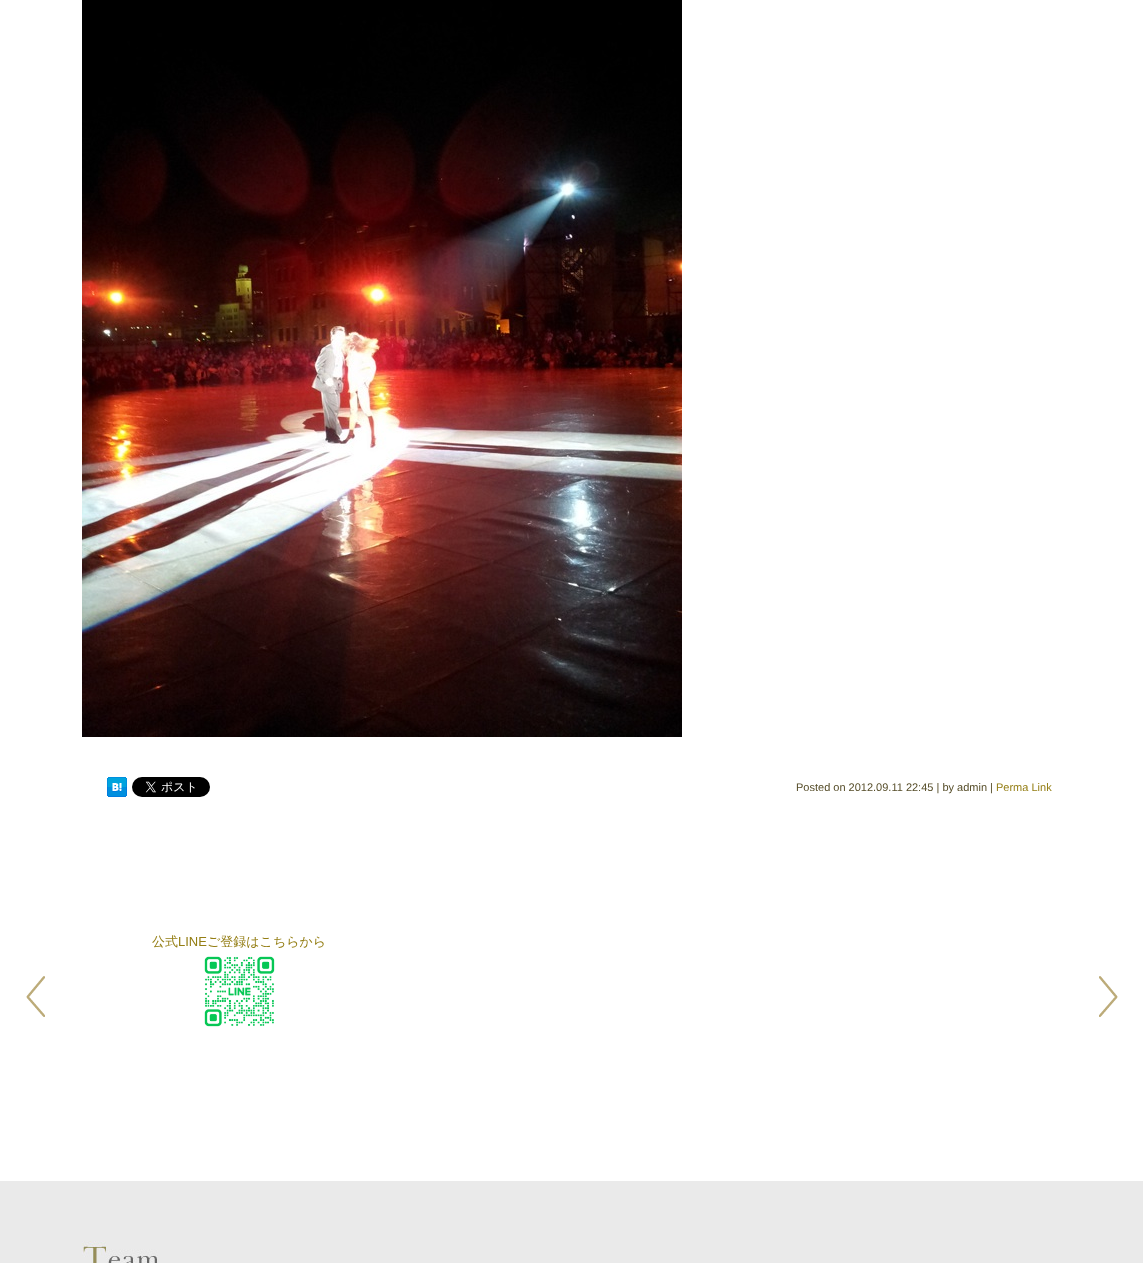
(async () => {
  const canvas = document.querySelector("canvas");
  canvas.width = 1143;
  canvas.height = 1263;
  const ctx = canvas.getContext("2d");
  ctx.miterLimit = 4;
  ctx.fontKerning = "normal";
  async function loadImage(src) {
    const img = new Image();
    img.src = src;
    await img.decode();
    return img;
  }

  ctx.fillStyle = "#ffffff";
  ctx.fillRect(0, 0, 1143, 1263);
  ctx.drawImage(await loadImage("img/1.png"), 82, 0, 600, 737);
  ctx.drawImage(await loadImage("img/2.png"), 107, 777, 20, 20);
  ctx.drawImage(await loadImage("img/3.png"), 132, 777, 78, 20);
  ctx.drawImage(await loadImage("img/4.png"), 204, 956, 71, 71);
  ctx.drawImage(await loadImage("img/5.png"), 26, 976, 19, 41);
  ctx.drawImage(await loadImage("img/6.png"), 1099, 976, 19, 41);
  ctx.fillStyle = "#eaeaea";
  ctx.fillRect(0, 1181, 1143, 82);
  ctx.drawImage(await loadImage("img/7.png"), 82, 1241, 76, 22);
  ctx.font = "11px Liberation Sans";
  ctx.fillStyle = "#564d29";
  ctx.fillText("Posted on 2012.09.11 22:45 | by admin |", 796, 791);
  ctx.fillStyle = "#947e14";
  ctx.fillText("Perma Link", 996, 791);
  ctx.font = "500 13px WenQuanYi Zen Hei";
  ctx.fillText("公式", 152, 946);
  ctx.font = "13px Liberation Sans";
  ctx.fillText("LINE", 178, 946);
  ctx.font = "500 13px WenQuanYi Zen Hei";
  ctx.fillText("ご登録はこちらから", 207, 946);
})();
